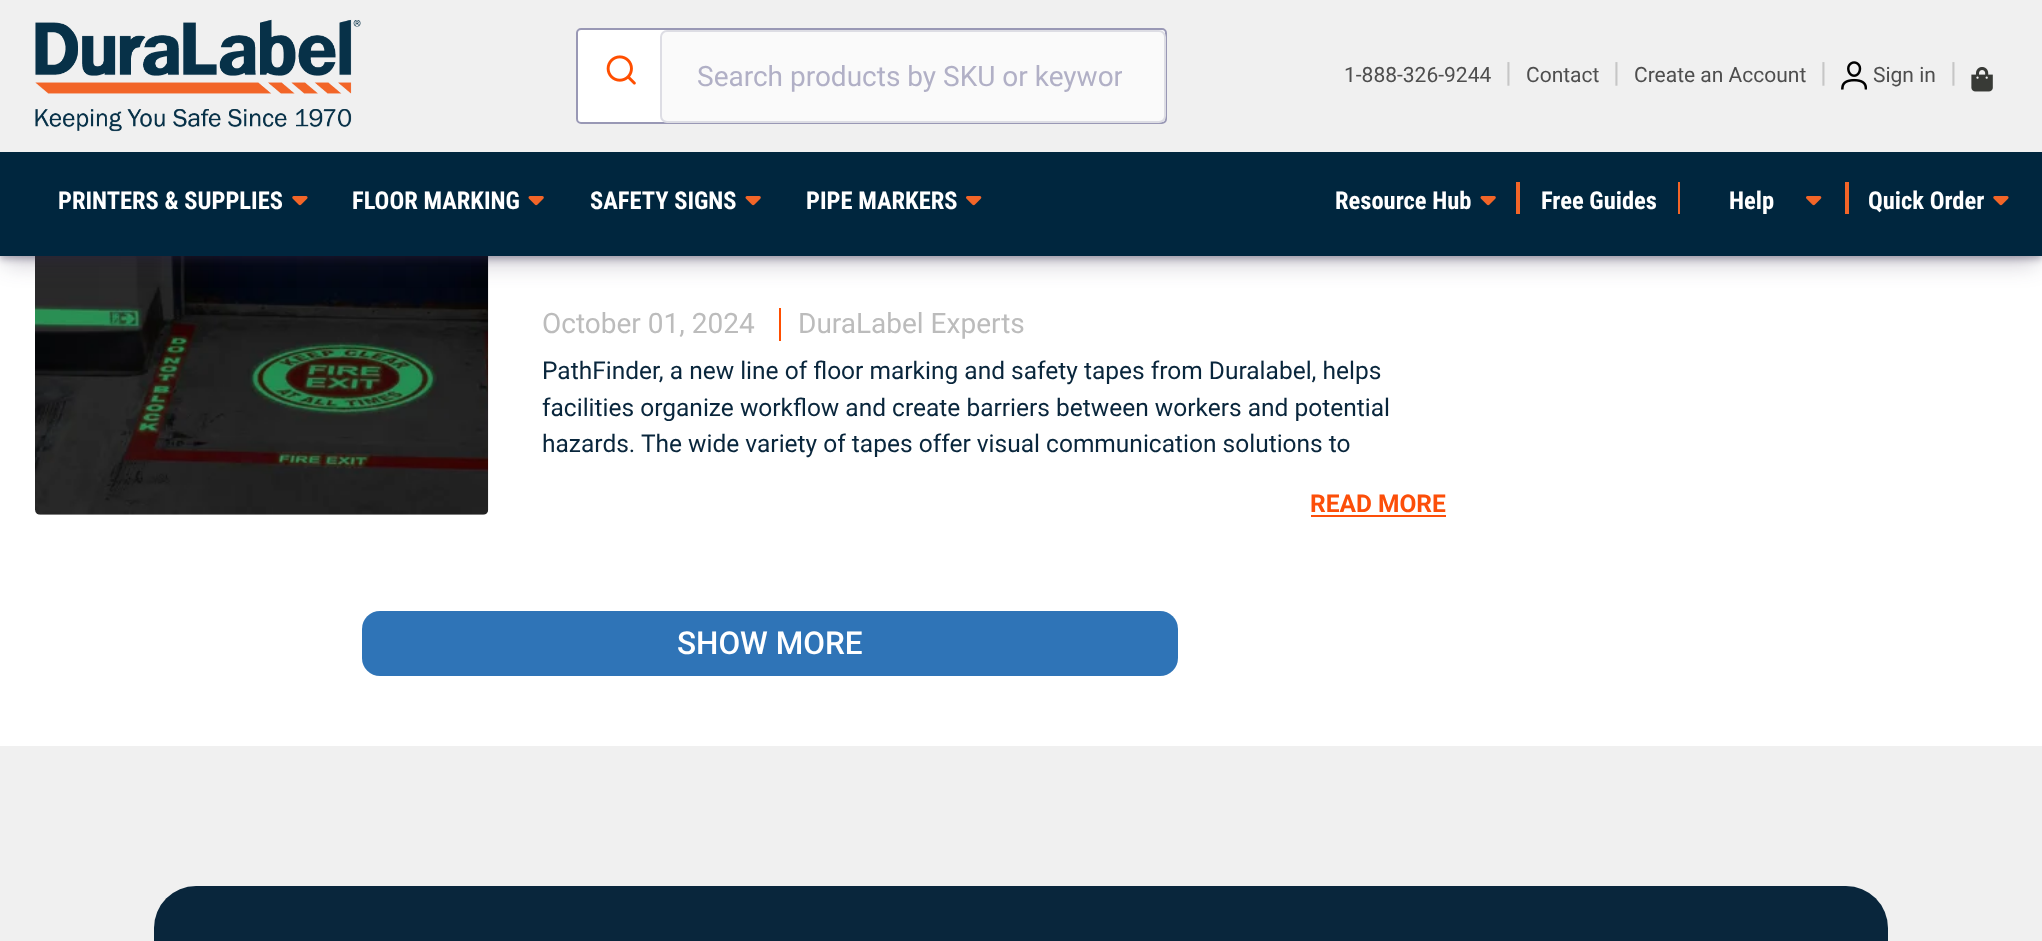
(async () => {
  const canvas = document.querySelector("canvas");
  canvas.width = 2042;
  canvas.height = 941;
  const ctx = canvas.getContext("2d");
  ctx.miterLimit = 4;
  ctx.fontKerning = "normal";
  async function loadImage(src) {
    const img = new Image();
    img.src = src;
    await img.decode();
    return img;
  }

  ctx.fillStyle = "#ffffff";
  ctx.fillRect(0, 0, 2042, 941);
  ctx.fillStyle = "#f4f4f4";
  ctx.beginPath();
  ctx.roundRect(35, 200, 453, 315, 5);
  ctx.fill();
  ctx.drawImage(await loadImage("img/8.png"), 35, 256, 454, 259);
  ctx.fillStyle = "rgba(45, 35, 66, 0.25)";
  ctx.filter = "blur(11.5px)";
  ctx.beginPath();
  ctx.rect(5, 18, 2032, 245);
  ctx.fill();
  ctx.filter = "none";
  ctx.fillStyle = "rgba(45, 35, 66, 0.35)";
  ctx.filter = "blur(3.5px)";
  ctx.beginPath();
  ctx.rect(0, 4, 2042, 255);
  ctx.fill();
  ctx.filter = "none";
  ctx.fillStyle = "#f0f0f0";
  ctx.fillRect(0, 0, 2042, 152);
  ctx.drawImage(await loadImage("img/1.png"), 35, 19, 326, 113);
  ctx.fillStyle = "#ffffff";
  ctx.beginPath();
  ctx.roundRect(576, 28, 591, 96, 5);
  ctx.fill();
  ctx.beginPath();
  ctx.roundRect(577, 29, 589, 94, 4);
  ctx.strokeStyle = "rgba(128, 126, 163, 0.8)";
  ctx.lineWidth = 2;
  ctx.stroke();
  ctx.drawImage(await loadImage("img/2.png"), 606, 55, 30, 30);
  ctx.fillStyle = "#fafafa";
  ctx.beginPath();
  ctx.roundRect(661, 31, 504, 91, 6);
  ctx.fill();
  ctx.strokeStyle = "#dddde4";
  ctx.stroke();
  ctx.drawImage(await loadImage("img/3.png"), 1841, 61, 26, 29);
  ctx.drawImage(await loadImage("img/4.png"), 1971, 67, 22, 25);
  ctx.fillStyle = "#00263e";
  ctx.fillRect(0, 152, 2042, 104);
  ctx.drawImage(await loadImage("img/5.png"), 292, 196, 16, 10);
  ctx.drawImage(await loadImage("img/6.png"), 528, 196, 16, 10);
  ctx.drawImage(await loadImage("img/6.png"), 745, 196, 16, 10);
  ctx.drawImage(await loadImage("img/7.png"), 966, 196, 16, 10);
  ctx.drawImage(await loadImage("img/6.png"), 1480, 196, 16, 10);
  ctx.fillStyle = "#f26528";
  ctx.fillRect(1516, 182, 4, 32);
  ctx.fillRect(1678, 182, 2, 32);
  ctx.drawImage(await loadImage("img/7.png"), 1806, 196, 16, 10);
  ctx.fillRect(1845, 182, 4, 32);
  ctx.drawImage(await loadImage("img/5.png"), 1993, 196, 16, 10);
  ctx.fillStyle = "#ff4e00";
  ctx.fillRect(779, 308, 2, 33);
  ctx.fillStyle = "#fc4e09";
  ctx.fillRect(1311, 515, 135, 2);
  ctx.fillStyle = "#2f74b7";
  ctx.beginPath();
  ctx.roundRect(362, 611, 816, 65, 18);
  ctx.fill();
  ctx.fillStyle = "#f0f0f0";
  ctx.fillRect(0, 746, 2042, 195);
  ctx.fillStyle = "#09263c";
  ctx.beginPath();
  ctx.roundRect(154, 886, 1734, 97, 42);
  ctx.fill();
  ctx.save();
  ctx.beginPath();
  ctx.rect(697, 60, 425, 33);
  ctx.clip();
  ctx.font = "28px Roboto";
  ctx.fillStyle = "#b1b0c6";
  ctx.fillText("Search products by SKU or keywor", 697, 86);
  ctx.restore();
  ctx.font = "21px Roboto";
  ctx.fillStyle = "#4e4e4e";
  ctx.fillText("1-888-326-9244", 1344, 82);
  ctx.font = "28px Roboto";
  ctx.fillStyle = "#c6c6c6";
  ctx.fillText("|", 1505, 82);
  ctx.font = "21px Roboto";
  ctx.fillStyle = "#4e4e4e";
  ctx.fillText("Contact", 1526, 82);
  ctx.font = "28px Roboto";
  ctx.fillStyle = "#c6c6c6";
  ctx.fillText("|", 1613, 82);
  ctx.font = "21px Roboto";
  ctx.fillStyle = "#4e4e4e";
  ctx.fillText("Create an Account", 1634, 82);
  ctx.font = "28px Roboto";
  ctx.fillStyle = "#c6c6c6";
  ctx.fillText("|", 1820, 82);
  ctx.font = "21px Roboto";
  ctx.fillStyle = "#4e4e4e";
  ctx.fillText("Sign in", 1873, 82);
  ctx.font = "28px Roboto";
  ctx.fillStyle = "#c6c6c6";
  ctx.fillText("|", 1950, 82);
  ctx.font = "bold 24.5px Roboto Condensed";
  ctx.fillStyle = "#ffffff";
  for (const [text, x, y] of [
    ["PRINTERS & SUPPLIES", 58, 209],
    ["FLOOR MARKING", 352, 209],
    ["SAFETY SIGNS", 590, 209],
    ["PIPE MARKERS", 806, 209],
    ["Resource Hub", 1335, 209],
    ["Free Guides", 1541, 209],
    ["Help", 1729, 209],
    ["Quick Order", 1868, 209],
  ]) {
    ctx.fillText(text, x, y);
  }
  ctx.font = "28px Roboto";
  ctx.fillStyle = "#bcbcbc";
  ctx.fillText("October 01, 2024", 542, 333);
  ctx.fillText("DuraLabel Experts", 798, 333);
  ctx.font = "24.5px Roboto";
  ctx.fillStyle = "#09263c";
  for (const [text, x, y] of [
    ["PathFinder, a new line of floor marking and safety tapes from Duralabel, helps", 542, 379],
    ["facilities organize workflow and create barriers between workers and potential", 542, 416],
    ["hazards. The wide variety of tapes offer visual communication solutions to", 542, 452],
  ]) {
    ctx.fillText(text, x, y);
  }
  ctx.font = "bold 24.5px Roboto";
  ctx.fillStyle = "#fc4e09";
  ctx.fillText("READ MORE", 1310, 512);
  ctx.font = "500 31.5px Roboto";
  ctx.fillStyle = "#ffffff";
  ctx.fillText("SHOW MORE", 677, 654);
})();
